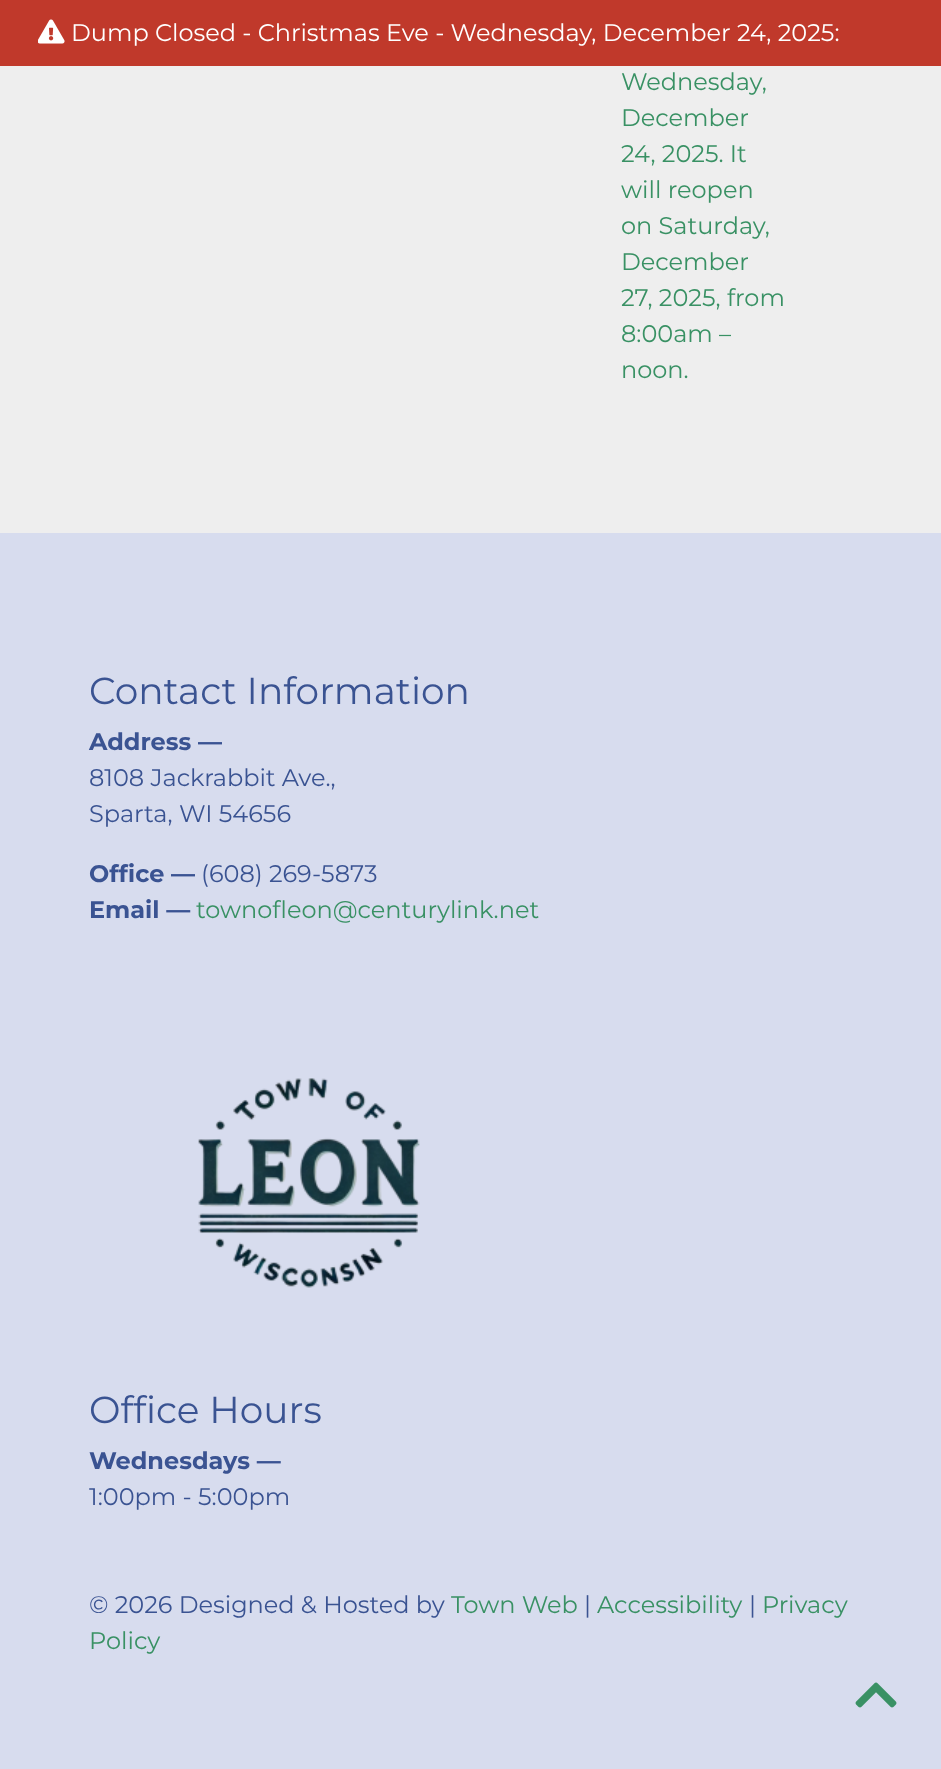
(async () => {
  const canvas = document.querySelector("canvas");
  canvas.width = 941;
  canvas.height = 1769;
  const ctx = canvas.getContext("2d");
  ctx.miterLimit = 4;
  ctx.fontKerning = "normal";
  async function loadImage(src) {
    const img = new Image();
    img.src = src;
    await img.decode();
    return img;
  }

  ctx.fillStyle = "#eeeeee";
  ctx.fillRect(0, 0, 941, 1769);
  ctx.fillStyle = "#c0392b";
  ctx.fillRect(0, 0, 941, 66);
  ctx.drawImage(await loadImage("img/1.png"), 38, 19, 27, 25);
  ctx.fillStyle = "#d7dcee";
  ctx.fillRect(0, 533, 941, 1236);
  ctx.drawImage(await loadImage("img/2.png"), 198, 1078, 222, 210);
  ctx.drawImage(await loadImage("img/3.png"), 855, 1682, 42, 26);
  ctx.font = "24px Montserrat";
  ctx.fillStyle = "#ffffff";
  ctx.fillText("Dump Closed - Christmas Eve - Wednesday, December 24, 2025:", 71, 41);
  ctx.fillStyle = "#399164";
  for (const [text, x, y] of [
    ["Wednesday,", 621, 90],
    ["December", 621, 126],
    ["24, 2025. It", 621, 162],
    ["will reopen", 621, 198],
    ["on Saturday,", 621, 234],
    ["December", 621, 270],
    ["27, 2025, from", 621, 306],
    ["8:00am –", 621, 342],
    ["noon.", 621, 378],
  ]) {
    ctx.fillText(text, x, y);
  }
  ctx.font = "37.5px Montserrat";
  ctx.fillStyle = "#3a5392";
  ctx.fillText("Contact Information", 89, 704);
  ctx.font = "bold 24px Montserrat";
  ctx.fillText("Address —", 89, 750);
  ctx.font = "24px Montserrat";
  ctx.fillText("8108 Jackrabbit Ave.,", 89, 786);
  ctx.fillText("Sparta, WI 54656", 89, 822);
  ctx.font = "bold 24px Montserrat";
  ctx.fillText("Office —", 89, 882);
  ctx.font = "24px Montserrat";
  ctx.fillText("(608) 269-5873", 201, 882);
  ctx.font = "bold 24px Montserrat";
  ctx.fillText("Email —", 89, 918);
  ctx.font = "24px Montserrat";
  ctx.fillStyle = "#399164";
  ctx.fillText("townofleon@centurylink.net", 196, 918);
  ctx.font = "37.5px Montserrat";
  ctx.fillStyle = "#3a5392";
  ctx.fillText("Office Hours", 89, 1423);
  ctx.font = "bold 24px Montserrat";
  ctx.fillText("Wednesdays —", 89, 1469);
  ctx.font = "24px Montserrat";
  ctx.fillText("1:00pm - 5:00pm", 89, 1505);
  ctx.fillText("© 2026 Designed & Hosted by", 89, 1613);
  ctx.fillStyle = "#399164";
  ctx.fillText("Town Web", 451, 1613);
  ctx.fillStyle = "#3a5392";
  ctx.fillText("|", 584, 1613);
  ctx.fillStyle = "#399164";
  ctx.fillText("Accessibility", 597, 1613);
  ctx.fillStyle = "#3a5392";
  ctx.fillText("|", 749, 1613);
  ctx.fillStyle = "#399164";
  ctx.fillText("Privacy", 762, 1613);
  ctx.fillText("Policy", 89, 1649);
})();
